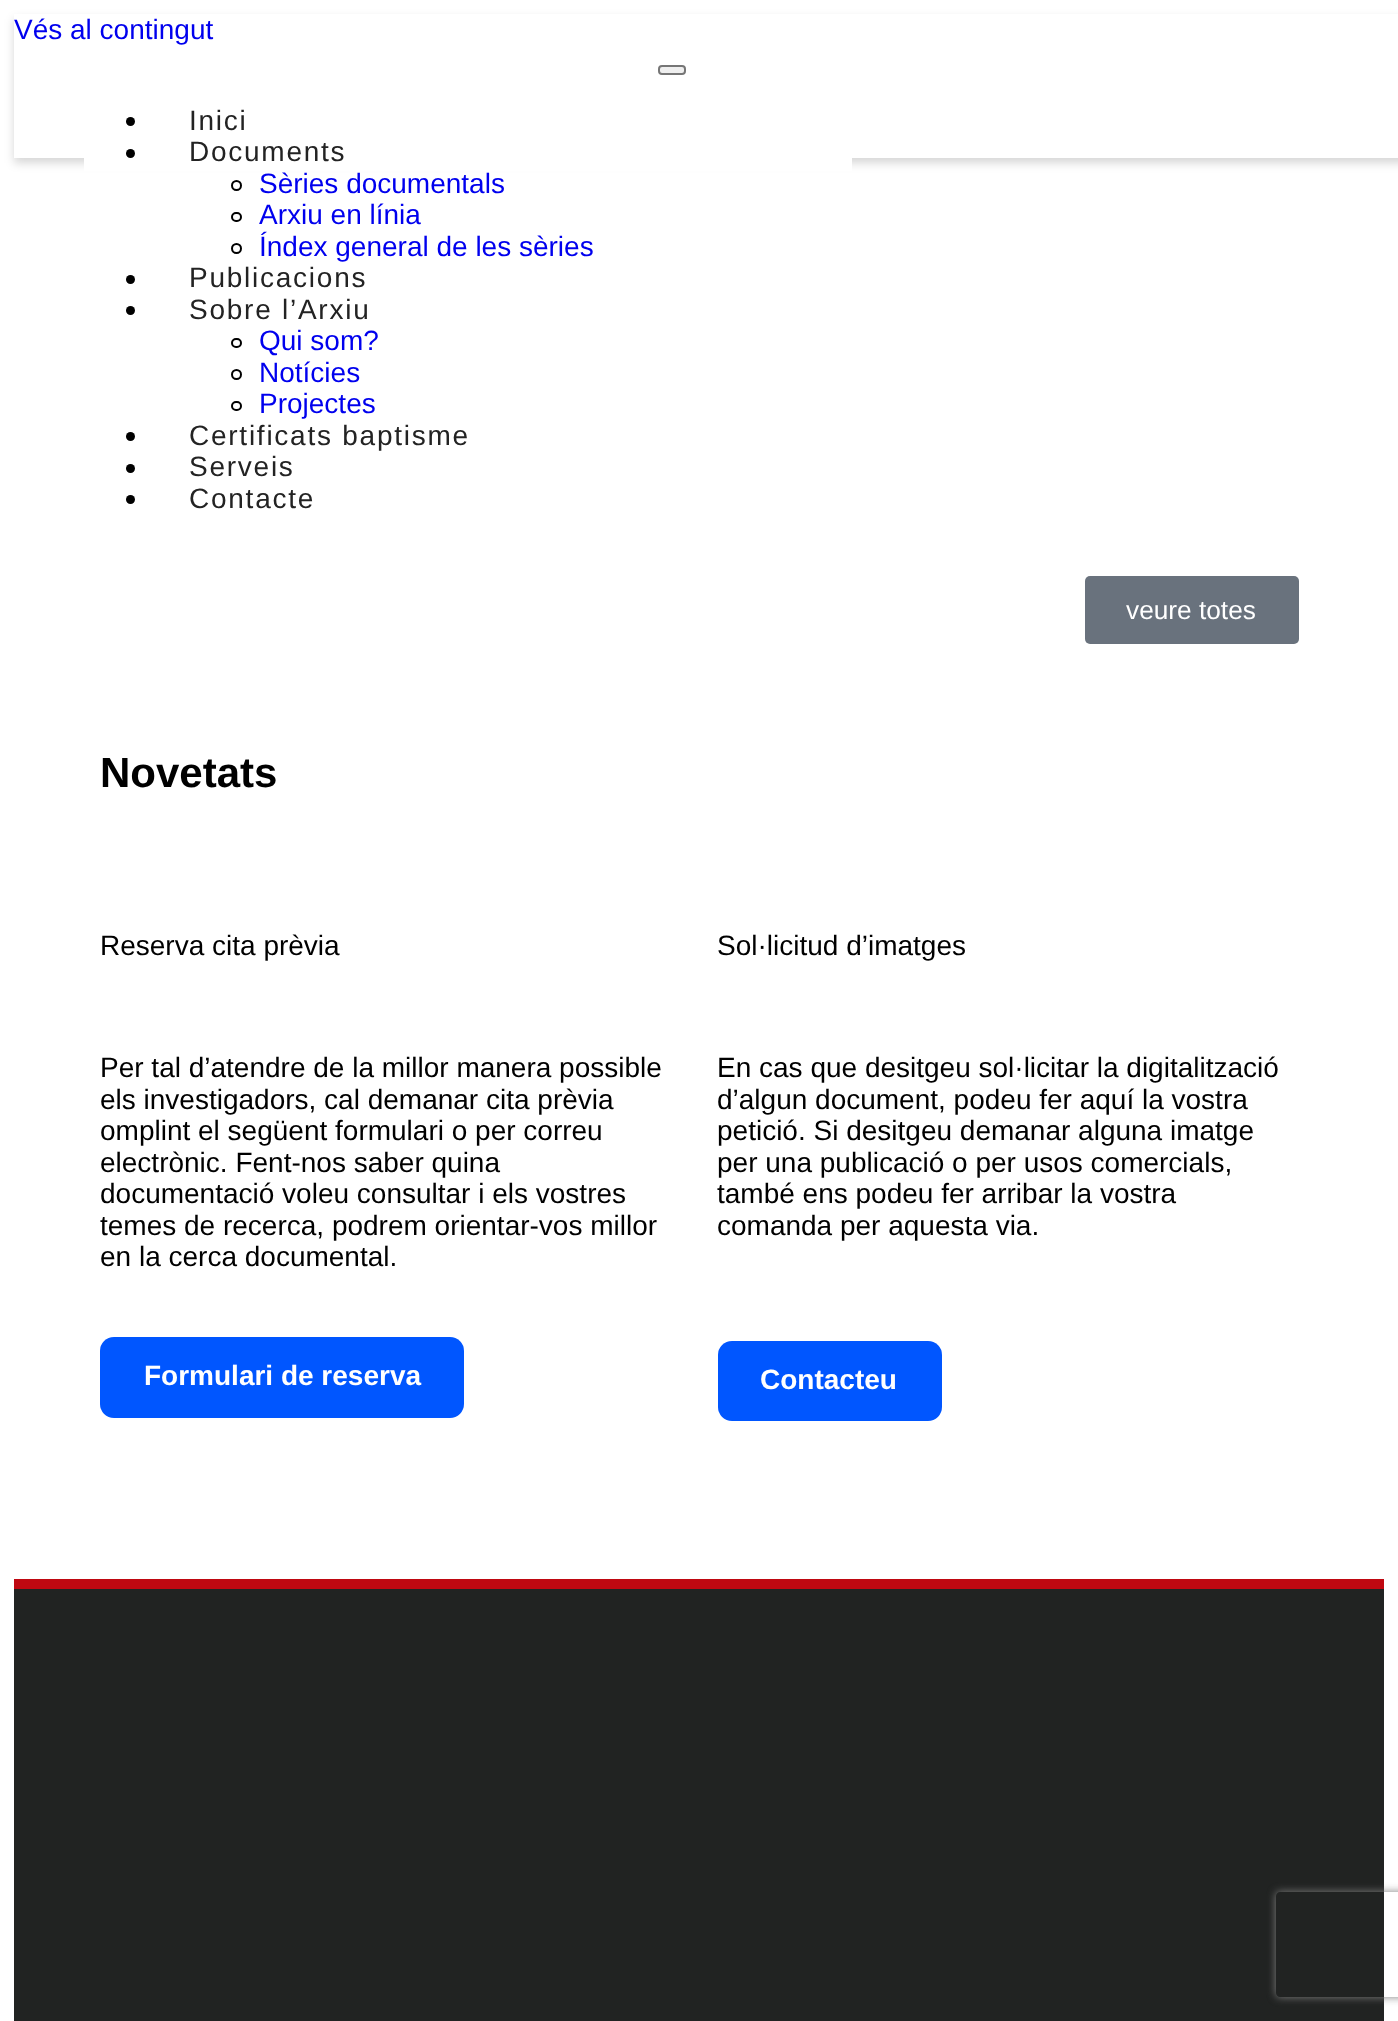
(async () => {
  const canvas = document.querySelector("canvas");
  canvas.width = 1398;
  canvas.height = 2021;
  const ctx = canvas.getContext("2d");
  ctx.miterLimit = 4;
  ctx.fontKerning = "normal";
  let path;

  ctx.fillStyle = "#ffffff";
  ctx.fillRect(0, 0, 1398, 2021);
  ctx.save();
  path = new Path2D("M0 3H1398V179H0ZM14 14H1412V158H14Z");
  ctx.clip(path, "evenodd");
  ctx.fillStyle = "rgba(0, 0, 0, 0.16)";
  ctx.filter = "blur(5px)";
  ctx.beginPath();
  ctx.rect(14, 19, 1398, 144);
  ctx.fill();
  ctx.filter = "none";
  ctx.restore();
  ctx.fillRect(14, 157, 1384, 1);
  ctx.fillStyle = "#efefef";
  ctx.beginPath();
  ctx.roundRect(659, 66, 26, 8, 3);
  ctx.fill();
  ctx.strokeStyle = "#767676";
  ctx.lineWidth = 2;
  ctx.stroke();
  ctx.fillStyle = "#ffffff";
  ctx.fillRect(84, 158, 768, 13);
  ctx.fillStyle = "#000000";
  ctx.beginPath();
  ctx.arc(130.5, 121.5, 4.5, 0, Math.PI * 2);
  ctx.fill();
  ctx.beginPath();
  ctx.arc(130.5, 153.5, 4.5, 0, Math.PI * 2);
  ctx.fill();
  ctx.beginPath();
  ctx.arc(236.5, 185.5, 4.5, 0, Math.PI * 2);
  ctx.strokeStyle = "#000000";
  ctx.stroke();
  ctx.beginPath();
  ctx.roundRect(232, 213, 9, 8, 4);
  ctx.stroke();
  ctx.beginPath();
  ctx.arc(236.5, 248.5, 4.5, 0, Math.PI * 2);
  ctx.stroke();
  ctx.beginPath();
  ctx.arc(130.5, 279.5, 4.5, 0, Math.PI * 2);
  ctx.fill();
  ctx.beginPath();
  ctx.arc(130.5, 310.5, 4.5, 0, Math.PI * 2);
  ctx.fill();
  ctx.beginPath();
  ctx.roundRect(232, 339, 9, 8, 4);
  ctx.stroke();
  ctx.beginPath();
  ctx.arc(236.5, 374.5, 4.5, 0, Math.PI * 2);
  ctx.stroke();
  ctx.beginPath();
  ctx.roundRect(232, 402, 9, 8, 4);
  ctx.stroke();
  ctx.beginPath();
  ctx.arc(130.5, 436.5, 4.5, 0, Math.PI * 2);
  ctx.fill();
  ctx.beginPath();
  ctx.arc(130.5, 468.5, 4.5, 0, Math.PI * 2);
  ctx.fill();
  ctx.beginPath();
  ctx.arc(130.5, 499.5, 4.5, 0, Math.PI * 2);
  ctx.fill();
  ctx.fillStyle = "#69727d";
  ctx.beginPath();
  ctx.roundRect(1085, 576, 214, 68, 5);
  ctx.fill();
  ctx.fillStyle = "#0056ff";
  ctx.beginPath();
  ctx.roundRect(100, 1337, 364, 81, 14);
  ctx.fill();
  ctx.beginPath();
  ctx.roundRect(718, 1341, 224, 80, 14);
  ctx.fill();
  ctx.fillStyle = "#212322";
  ctx.fillRect(14, 1589, 1370, 432);
  ctx.fillStyle = "#bf0811";
  ctx.fillRect(14, 1579, 1370, 10);
  ctx.save();
  path = new Path2D("M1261 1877H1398V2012H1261ZM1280 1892H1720C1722 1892 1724 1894 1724 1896V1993C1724 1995 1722 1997 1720 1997H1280C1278 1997 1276 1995 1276 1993V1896C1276 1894 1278 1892 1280 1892Z");
  ctx.clip(path, "evenodd");
  ctx.fillStyle = "#808080";
  ctx.filter = "blur(4.5px)";
  ctx.beginPath();
  ctx.roundRect(1276, 1892, 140, 105, 4);
  ctx.fill();
  ctx.filter = "none";
  ctx.restore();
  ctx.font = "28px Liberation Sans";
  ctx.fillStyle = "#0000ee";
  ctx.fillText("Vés al contingut", 14, 39);
  ctx.letterSpacing = "1.75px";
  ctx.fillStyle = "#232323";
  ctx.fillText("Inici", 189, 130);
  ctx.fillText("Documents", 189, 161);
  ctx.letterSpacing = "0px";
  ctx.fillStyle = "#0000ee";
  for (const [text, x, y] of [
    ["Sèries documentals", 259, 193],
    ["Arxiu en línia", 259, 224],
    ["Índex general de les sèries", 259, 256],
  ]) {
    ctx.fillText(text, x, y);
  }
  ctx.letterSpacing = "1.75px";
  ctx.fillStyle = "#232323";
  ctx.fillText("Publicacions", 189, 287);
  ctx.fillText("Sobre l’Arxiu", 189, 319);
  ctx.letterSpacing = "0px";
  ctx.fillStyle = "#0000ee";
  for (const [text, x, y] of [
    ["Qui som?", 259, 350],
    ["Notícies", 259, 382],
    ["Projectes", 259, 413],
  ]) {
    ctx.fillText(text, x, y);
  }
  ctx.letterSpacing = "1.75px";
  ctx.fillStyle = "#232323";
  for (const [text, x, y] of [
    ["Certificats baptisme", 189, 445],
    ["Serveis", 189, 476],
    ["Contacte", 189, 508],
  ]) {
    ctx.fillText(text, x, y);
  }
  ctx.letterSpacing = "0px";
  ctx.font = "26.25px Liberation Sans";
  ctx.fillStyle = "#ffffff";
  ctx.fillText("veure totes", 1126, 619);
  ctx.font = "bold 42px Liberation Sans";
  ctx.fillStyle = "#000000";
  ctx.fillText("Novetats", 100, 787);
  ctx.font = "28px Liberation Sans";
  for (const [text, x, y] of [
    ["Reserva cita prèvia", 100, 955],
    ["Per tal d’atendre de la millor manera possible", 100, 1077],
    ["els investigadors, cal demanar cita prèvia", 100, 1109],
    ["omplint el següent formulari o per correu", 100, 1140],
    ["electrònic. Fent-nos saber quina", 100, 1172],
    ["documentació voleu consultar i els vostres", 100, 1203],
    ["temes de recerca, podrem orientar-vos millor", 100, 1235],
    ["en la cerca documental.", 100, 1266],
  ]) {
    ctx.fillText(text, x, y);
  }
  ctx.font = "bold 28px Liberation Sans";
  ctx.fillStyle = "#ffffff";
  ctx.fillText("Formulari de reserva", 144, 1385);
  ctx.font = "28px Liberation Sans";
  ctx.fillStyle = "#000000";
  for (const [text, x, y] of [
    ["Sol·licitud d’imatges", 717, 955],
    ["En cas que desitgeu sol·licitar la digitalització", 717, 1077],
    ["d’algun document, podeu fer aquí la vostra", 717, 1109],
    ["petició. Si desitgeu demanar alguna imatge", 717, 1140],
    ["per una publicació o per usos comercials,", 717, 1172],
    ["també ens podeu fer arribar la vostra", 717, 1203],
    ["comanda per aquesta via.", 717, 1235],
  ]) {
    ctx.fillText(text, x, y);
  }
  ctx.font = "bold 28px Liberation Sans";
  ctx.fillStyle = "#ffffff";
  ctx.fillText("Contacteu", 760, 1389);
})();
